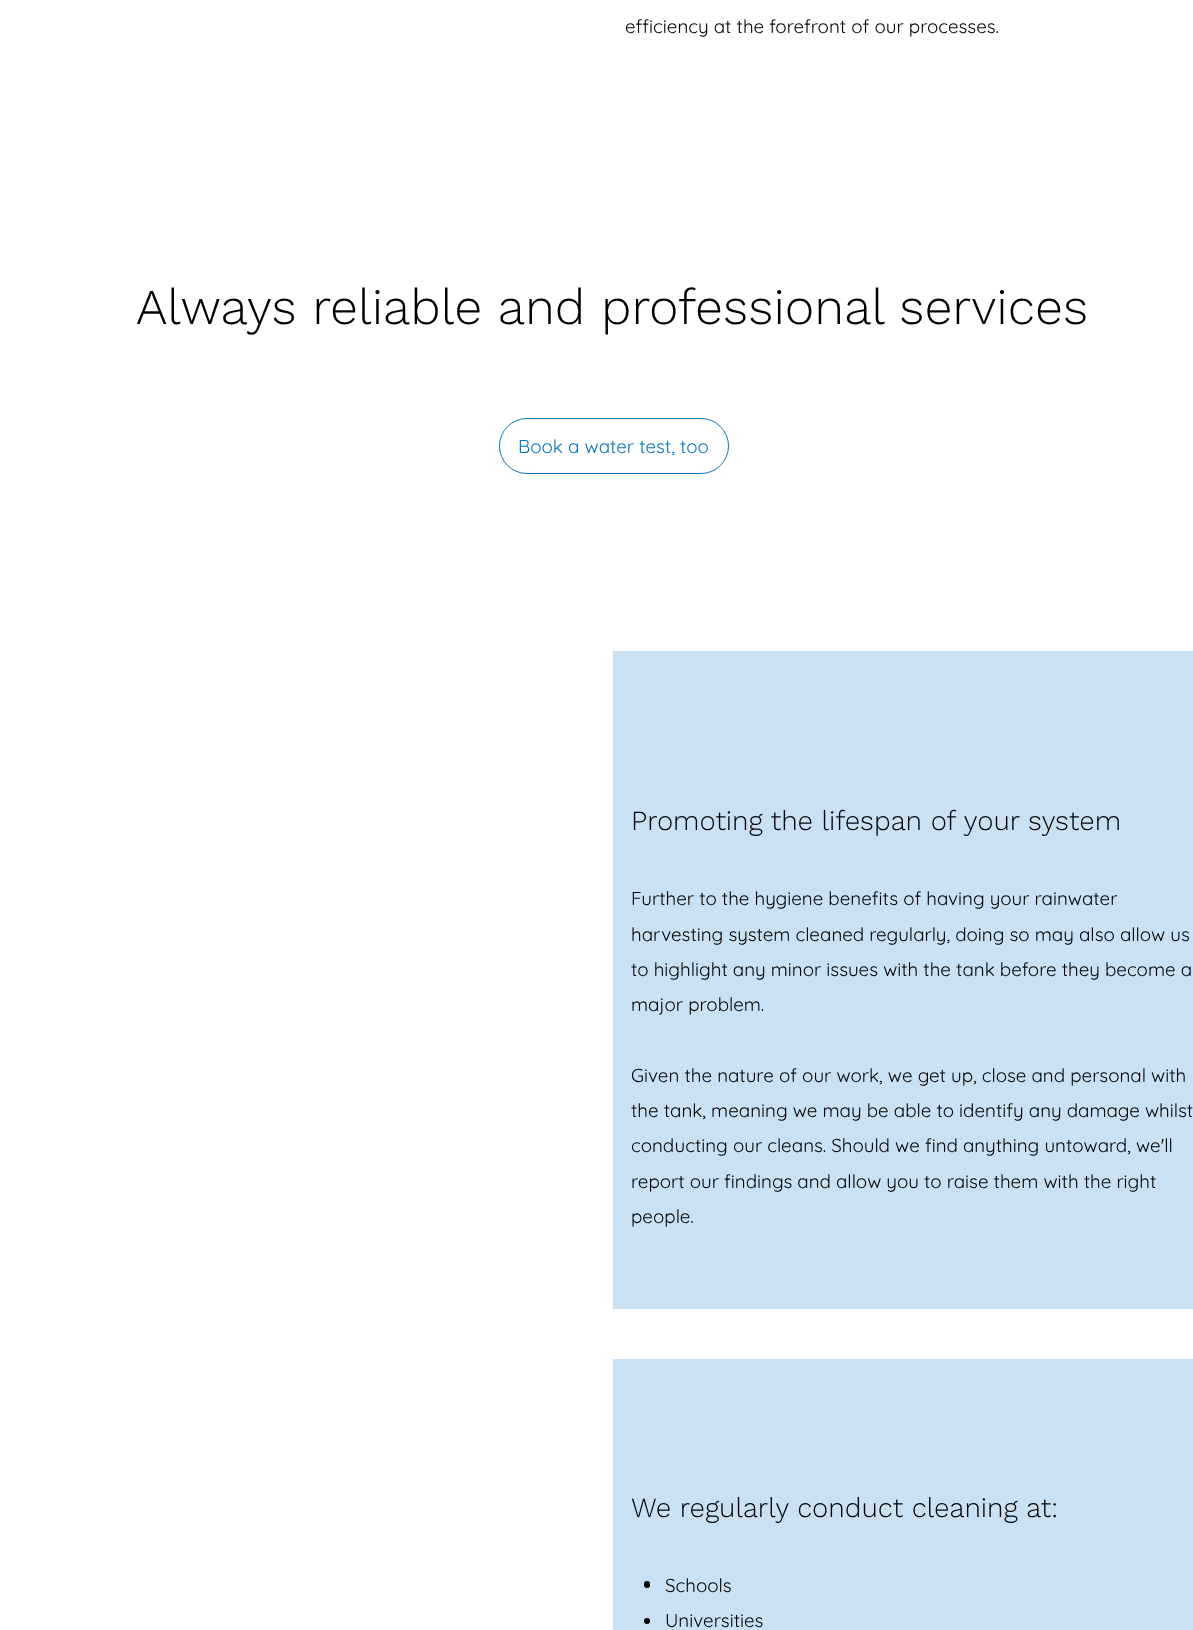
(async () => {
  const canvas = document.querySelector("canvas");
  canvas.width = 1193;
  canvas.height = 1630;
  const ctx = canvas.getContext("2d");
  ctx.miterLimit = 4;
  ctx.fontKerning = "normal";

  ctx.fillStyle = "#ffffff";
  ctx.fillRect(0, 0, 1193, 1630);
  ctx.beginPath();
  ctx.roundRect(499.5, 418.5, 229, 55, 27.5);
  ctx.strokeStyle = "#0474bc";
  ctx.stroke();
  ctx.fillStyle = "#cae1f3";
  ctx.fillRect(613, 651, 580, 658);
  ctx.fillRect(613, 1359, 580, 271);
  ctx.fillStyle = "#000000";
  ctx.beginPath();
  ctx.roundRect(644, 1581, 6, 7, 3);
  ctx.fill();
  ctx.beginPath();
  ctx.arc(647, 1621, 3, 0, Math.PI * 2);
  ctx.fill();
  ctx.font = "18.75px Quicksand";
  ctx.fillText("efficiency at the forefront of our processes.", 625, 33);
  ctx.font = "300 50px Work Sans";
  ctx.fillText("Always reliable and professional services", 136, 324);
  ctx.font = "18.75px Quicksand";
  ctx.fillStyle = "#0474bc";
  ctx.fillText("Book a water test, too", 518, 453);
  ctx.font = "300 27.5px Work Sans";
  ctx.fillStyle = "#000000";
  ctx.fillText("Promoting the lifespan of your system", 631, 830);
  ctx.font = "18.75px Quicksand";
  for (const [text, x, y] of [
    ["Further to the hygiene benefits of having your rainwater", 631, 905],
    ["harvesting system cleaned regularly, doing so may also allow us", 631, 941],
    ["to highlight any minor issues with the tank before they become a", 631, 976],
    ["major problem.", 631, 1011],
    ["Given the nature of our work, we get up, close and personal with", 631, 1082],
    ["the tank, meaning we may be able to identify any damage whilst", 631, 1117],
    ["conducting our cleans. Should we find anything untoward, we'll", 631, 1152],
    ["report our findings and allow you to raise them with the right", 631, 1188],
    ["people.", 631, 1223],
  ]) {
    ctx.fillText(text, x, y);
  }
  ctx.font = "300 27.5px Work Sans";
  ctx.fillText("We regularly conduct cleaning at:", 631, 1517);
  ctx.font = "18.75px Quicksand";
  ctx.fillText("Schools", 665, 1592);
  ctx.fillText("Universities", 665, 1627);
})();
